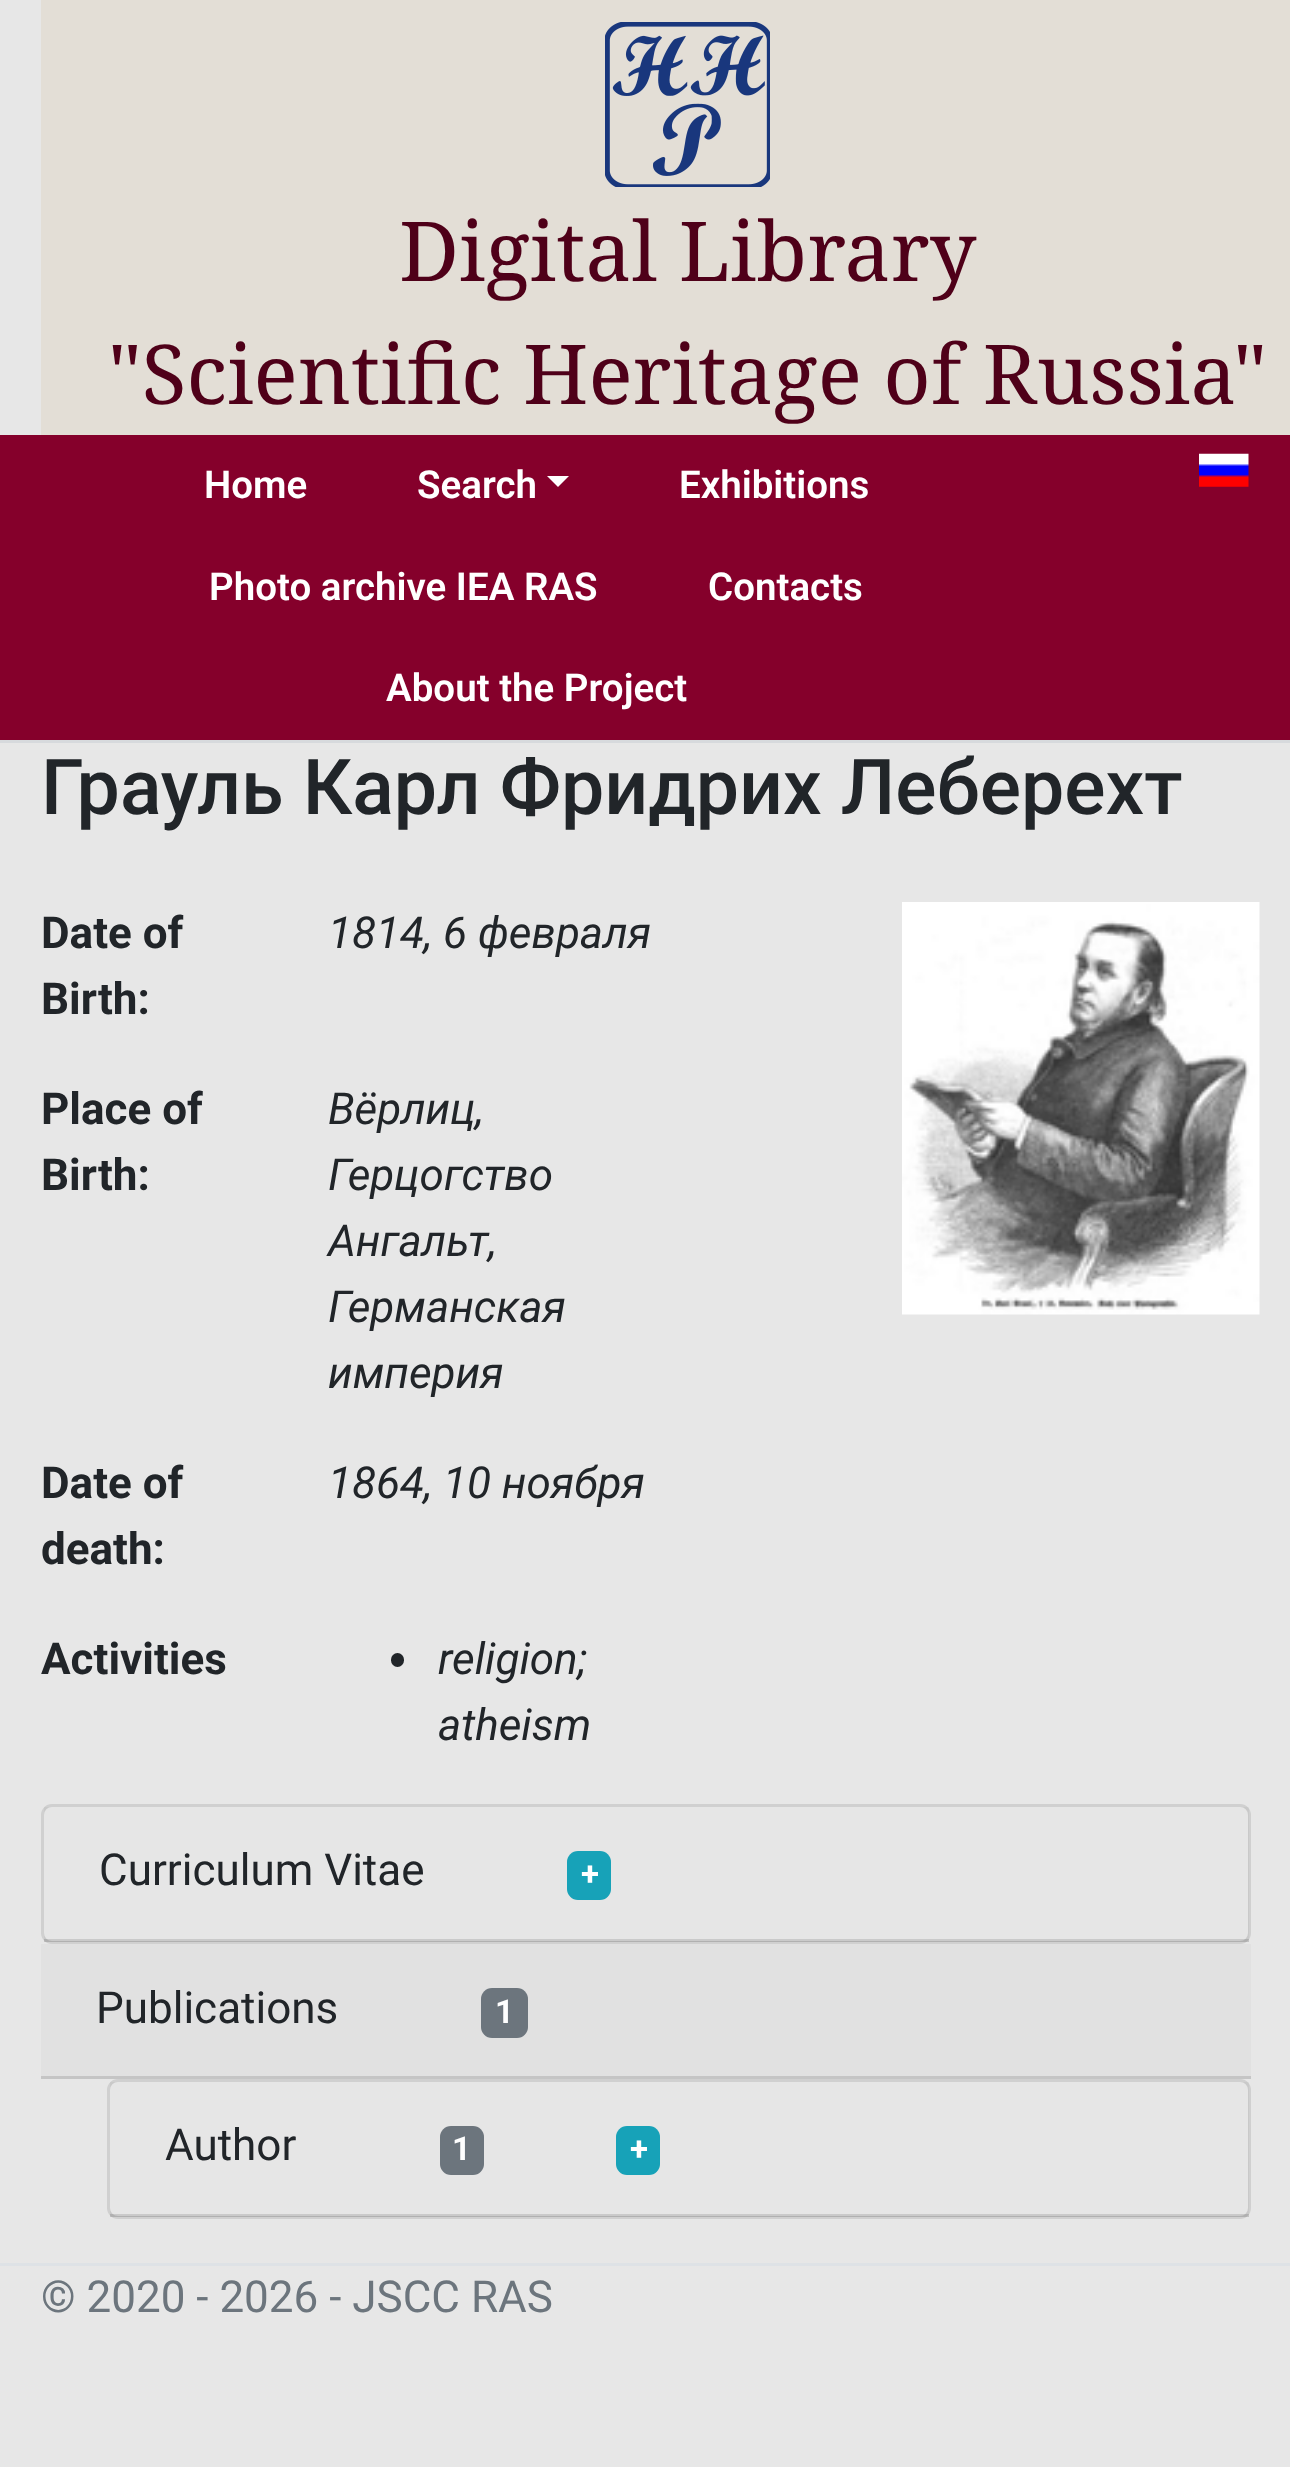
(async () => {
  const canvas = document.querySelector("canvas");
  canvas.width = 1290;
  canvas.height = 2467;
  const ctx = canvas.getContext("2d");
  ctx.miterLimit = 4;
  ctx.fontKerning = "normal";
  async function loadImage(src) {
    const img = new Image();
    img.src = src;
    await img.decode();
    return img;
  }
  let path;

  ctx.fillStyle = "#e7e7e7";
  ctx.fillRect(0, 0, 1290, 2467);
  ctx.fillStyle = "#e3ded6";
  ctx.fillRect(41, 0, 1249, 435);
  ctx.drawImage(await loadImage("img/1.png"), 605, 22, 165, 165);
  ctx.fillStyle = "#85002b";
  ctx.fillRect(0, 435, 1290, 305);
  ctx.fillStyle = "#d7dadd";
  ctx.fillRect(0, 740, 1290, 3);
  ctx.fillStyle = "#ffffff";
  path = new Path2D("M547 476H569L558 487Z");
  ctx.fill(path);
  ctx.drawImage(await loadImage("img/2.png"), 1199, 453, 50, 34);
  ctx.fillStyle = "#212529";
  ctx.beginPath();
  ctx.roundRect(391, 1653, 13, 14, 6.5);
  ctx.fill();
  ctx.drawImage(await loadImage("img/3.png"), 902, 902, 358, 413);
  ctx.fillStyle = "#eeeeee";
  ctx.beginPath();
  ctx.roundRect(42.5, 1805.5, 1207, 137, 9.5);
  ctx.fill();
  ctx.strokeStyle = "#d0d0d0";
  ctx.lineWidth = 3;
  ctx.stroke();
  ctx.fillStyle = "rgba(0, 0, 0, 0.03)";
  ctx.fillRect(44, 1807, 1205, 135);
  ctx.fillStyle = "rgba(0, 0, 0, 0.12)";
  ctx.fillRect(44, 1939, 1205, 3);
  ctx.fillStyle = "#17a2b8";
  ctx.beginPath();
  ctx.roundRect(567, 1851, 44, 49, 11);
  ctx.fill();
  ctx.fillStyle = "#e1e1e1";
  ctx.fillRect(41, 1944, 1210, 132);
  ctx.fillStyle = "#c5c5c5";
  ctx.fillRect(41, 2076, 1210, 3);
  ctx.fillStyle = "#6c757d";
  ctx.beginPath();
  ctx.roundRect(481, 1988, 47, 50, 11);
  ctx.fill();
  ctx.fillStyle = "#eeeeee";
  ctx.beginPath();
  ctx.roundRect(108.5, 2080.5, 1141, 137, 9.5);
  ctx.fill();
  ctx.stroke();
  ctx.fillStyle = "rgba(0, 0, 0, 0.03)";
  ctx.fillRect(110, 2082, 1139, 135);
  ctx.fillStyle = "rgba(0, 0, 0, 0.12)";
  ctx.fillRect(110, 2214, 1139, 3);
  ctx.fillStyle = "#6c757d";
  ctx.beginPath();
  ctx.roundRect(440, 2126, 44, 49, 11);
  ctx.fill();
  ctx.fillStyle = "#17a2b8";
  ctx.beginPath();
  ctx.roundRect(616, 2126, 44, 49, 11);
  ctx.fill();
  ctx.fillStyle = "#dee2e6";
  ctx.fillRect(0, 2263, 1290, 3);
  ctx.font = "82.5px Noto Serif";
  ctx.fillStyle = "#4f0019";
  ctx.fillText("Digital Library", 399, 281);
  ctx.fillText("\"Scientific Heritage of Russia\"", 108, 404);
  ctx.font = "600 38.5px Roboto";
  ctx.fillStyle = "#ffffff";
  for (const [text, x, y] of [
    ["Home", 204, 498],
    ["Search", 417, 498],
    ["Exhibitions", 679, 498],
    ["Photo archive IEA RAS", 209, 600],
    ["Contacts", 708, 600],
    ["About the Project", 386, 701],
  ]) {
    ctx.fillText(text, x, y);
  }
  ctx.font = "500 77px Roboto";
  ctx.fillStyle = "#212529";
  ctx.fillText("Грауль Карл Фридрих Леберехт", 41, 814);
  ctx.font = "bold 44px Roboto";
  ctx.fillText("Date of", 41, 948);
  ctx.fillText("Birth:", 41, 1014);
  ctx.font = "italic 44px Roboto";
  ctx.fillText("1814, 6 февраля", 328, 948);
  ctx.font = "bold 44px Roboto";
  ctx.fillText("Place of", 41, 1124);
  ctx.fillText("Birth:", 41, 1190);
  ctx.font = "italic 44px Roboto";
  for (const [text, x, y] of [
    ["Вёрлиц,", 328, 1124],
    ["Герцогство", 328, 1190],
    ["Ангальт,", 328, 1256],
    ["Германская", 328, 1322],
    ["империя", 328, 1388],
  ]) {
    ctx.fillText(text, x, y);
  }
  ctx.font = "bold 44px Roboto";
  ctx.fillText("Date of", 41, 1498);
  ctx.fillText("death:", 41, 1564);
  ctx.font = "italic 44px Roboto";
  ctx.fillText("1864, 10 ноября", 328, 1498);
  ctx.font = "bold 44px Roboto";
  ctx.fillText("Activities", 41, 1674);
  ctx.font = "italic 44px Roboto";
  ctx.fillText("religion;", 438, 1674);
  ctx.fillText("atheism", 438, 1740);
  ctx.font = "44px Roboto";
  ctx.fillText("Curriculum Vitae", 99, 1885);
  ctx.font = "bold 33px Roboto";
  ctx.fillStyle = "#ffffff";
  ctx.fillText("+", 581, 1885);
  ctx.font = "44px Roboto";
  ctx.fillStyle = "#212529";
  ctx.fillText("Publications", 96, 2023);
  ctx.font = "bold 33px Roboto";
  ctx.fillStyle = "#ffffff";
  ctx.fillText("1", 495, 2023);
  ctx.font = "44px Roboto";
  ctx.fillStyle = "#212529";
  ctx.fillText("Author", 165, 2160);
  ctx.font = "bold 33px Roboto";
  ctx.fillStyle = "#ffffff";
  ctx.fillText("1", 452, 2160);
  ctx.fillText("+", 630, 2160);
  ctx.font = "44px Roboto";
  ctx.fillStyle = "#6c757d";
  ctx.fillText("© 2020 - 2026 - JSСC RAS", 41, 2312);
})();
